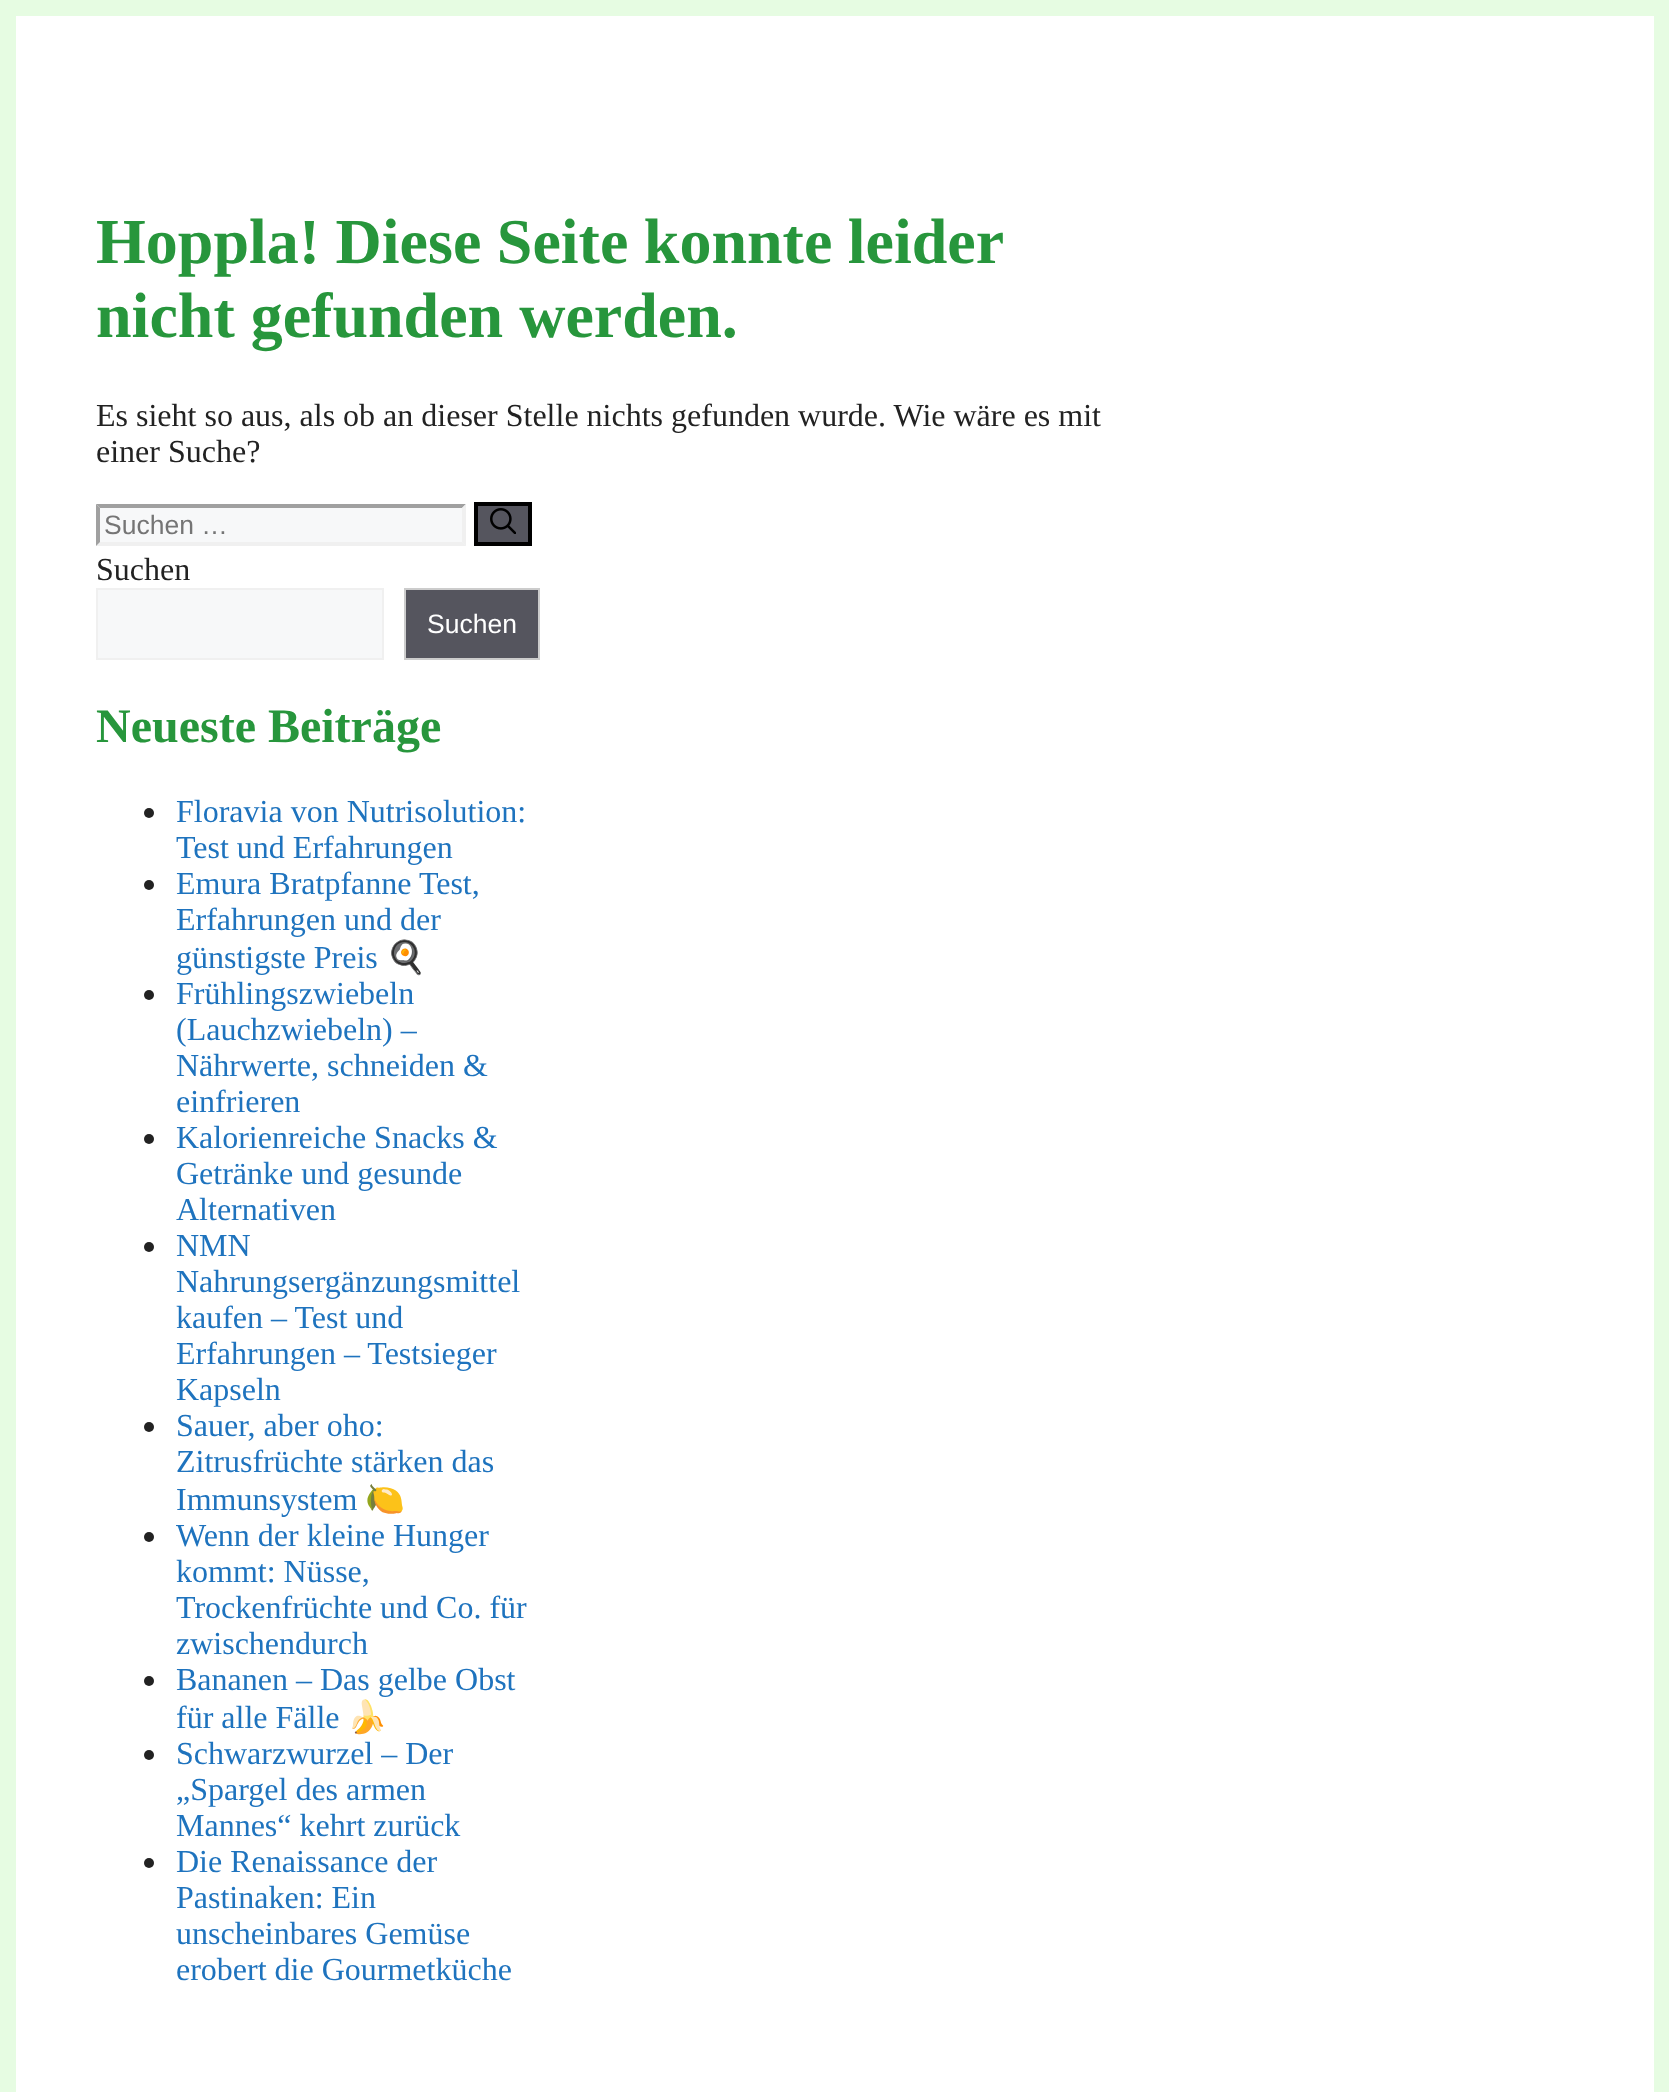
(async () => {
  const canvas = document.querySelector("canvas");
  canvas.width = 1669;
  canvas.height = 2092;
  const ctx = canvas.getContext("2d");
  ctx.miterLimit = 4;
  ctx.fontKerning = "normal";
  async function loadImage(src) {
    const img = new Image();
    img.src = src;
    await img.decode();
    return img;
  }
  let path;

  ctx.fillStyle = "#e6fce2";
  ctx.fillRect(0, 0, 1669, 2092);
  ctx.fillStyle = "#ffffff";
  ctx.fillRect(16, 16, 1638, 2076);
  ctx.fillStyle = "#f7f8f9";
  ctx.fillRect(96, 504, 370, 42);
  ctx.fillStyle = "#a0a0a0";
  path = new Path2D("M96 504H466L462 508H100Z");
  ctx.fill(path);
  ctx.fillStyle = "#f0f0f0";
  path = new Path2D("M466 504V546L462 542V508Z");
  ctx.fill(path);
  path = new Path2D("M466 546H96L100 542H462Z");
  ctx.fill(path);
  ctx.fillStyle = "#a0a0a0";
  path = new Path2D("M96 546V504L100 508V542Z");
  ctx.fill(path);
  ctx.fillStyle = "#55555e";
  ctx.beginPath();
  ctx.rect(476, 504, 54, 40);
  ctx.fill();
  ctx.strokeStyle = "#000000";
  ctx.lineWidth = 4;
  ctx.stroke();
  ctx.drawImage(await loadImage("img/1.png"), 490, 508, 26, 26);
  ctx.fillStyle = "#f7f8f9";
  ctx.beginPath();
  ctx.rect(97, 589, 286, 70);
  ctx.fill();
  ctx.strokeStyle = "#f0f0f0";
  ctx.lineWidth = 2;
  ctx.stroke();
  ctx.fillStyle = "#55555e";
  ctx.beginPath();
  ctx.rect(405, 589, 134, 70);
  ctx.fill();
  ctx.strokeStyle = "#cccccc";
  ctx.stroke();
  ctx.fillStyle = "#222222";
  ctx.beginPath();
  ctx.arc(149, 813, 5, 0, Math.PI * 2);
  ctx.fill();
  ctx.beginPath();
  ctx.arc(149, 885, 5, 0, Math.PI * 2);
  ctx.fill();
  ctx.beginPath();
  ctx.arc(149, 995, 5, 0, Math.PI * 2);
  ctx.fill();
  ctx.beginPath();
  ctx.arc(149, 1139, 5, 0, Math.PI * 2);
  ctx.fill();
  ctx.beginPath();
  ctx.arc(149, 1247, 5, 0, Math.PI * 2);
  ctx.fill();
  ctx.beginPath();
  ctx.arc(149, 1427, 5, 0, Math.PI * 2);
  ctx.fill();
  ctx.beginPath();
  ctx.arc(149, 1537, 5, 0, Math.PI * 2);
  ctx.fill();
  ctx.beginPath();
  ctx.arc(149, 1681, 5, 0, Math.PI * 2);
  ctx.fill();
  ctx.beginPath();
  ctx.arc(149, 1755, 5, 0, Math.PI * 2);
  ctx.fill();
  ctx.beginPath();
  ctx.arc(149, 1863, 5, 0, Math.PI * 2);
  ctx.fill();
  ctx.wordSpacing = "-0.5px";
  ctx.font = "bold 64px Liberation Serif";
  ctx.fillStyle = "#27963c";
  ctx.fillText("Hoppla! Diese Seite konnte leider", 96, 263);
  ctx.wordSpacing = "0px";
  ctx.fillText("nicht gefunden werden.", 96, 337);
  ctx.font = "32px Liberation Serif";
  ctx.fillStyle = "#222222";
  ctx.fillText("Es sieht so aus, als ob an dieser Stelle nichts gefunden wurde. Wie wäre es mit", 96, 426);
  ctx.fillText("einer Suche?", 96, 462);
  ctx.font = "26.5px Liberation Sans";
  ctx.fillStyle = "#757575";
  ctx.fillText("Suchen …", 104, 534);
  ctx.font = "32px Liberation Serif";
  ctx.fillStyle = "#222222";
  ctx.fillText("Suchen", 96, 580);
  ctx.font = "26.5px Liberation Sans";
  ctx.fillStyle = "#ffffff";
  ctx.fillText("Suchen", 427, 633);
  ctx.font = "bold 48px Liberation Serif";
  ctx.fillStyle = "#27963c";
  ctx.fillText("Neueste Beiträge", 96, 742);
  ctx.font = "32px Liberation Serif";
  ctx.fillStyle = "#1e73be";
  for (const [text, x, y] of [
    ["Floravia von Nutrisolution:", 176, 822],
    ["Test und Erfahrungen", 176, 858],
    ["Emura Bratpfanne Test,", 176, 894],
    ["Erfahrungen und der", 176, 930],
    ["günstigste Preis", 176, 968],
  ]) {
    ctx.fillText(text, x, y);
  }
  ctx.font = "32px Noto Color Emoji";
  ctx.fillText("🍳", 386, 968);
  ctx.font = "32px Liberation Serif";
  for (const [text, x, y] of [
    ["Frühlingszwiebeln", 176, 1004],
    ["(Lauchzwiebeln) –", 176, 1040],
    ["Nährwerte, schneiden &", 176, 1076],
    ["einfrieren", 176, 1112],
    ["Kalorienreiche Snacks &", 176, 1148],
    ["Getränke und gesunde", 176, 1184],
    ["Alternativen", 176, 1220],
    ["NMN", 176, 1256],
    ["Nahrungsergänzungsmittel", 176, 1292],
    ["kaufen – Test und", 176, 1328],
    ["Erfahrungen – Testsieger", 176, 1364],
    ["Kapseln", 176, 1400],
    ["Sauer, aber oho:", 176, 1436],
    ["Zitrusfrüchte stärken das", 176, 1472],
    ["Immunsystem", 176, 1510],
  ]) {
    ctx.fillText(text, x, y);
  }
  ctx.font = "32px Noto Color Emoji";
  ctx.fillText("🍋", 365, 1510);
  ctx.font = "32px Liberation Serif";
  for (const [text, x, y] of [
    ["Wenn der kleine Hunger", 176, 1546],
    ["kommt: Nüsse,", 176, 1582],
    ["Trockenfrüchte und Co. für", 176, 1618],
    ["zwischendurch", 176, 1654],
    ["Bananen – Das gelbe Obst", 176, 1690],
    ["für alle Fälle", 176, 1728],
  ]) {
    ctx.fillText(text, x, y);
  }
  ctx.font = "32px Noto Color Emoji";
  ctx.fillText("🍌", 347, 1728);
  ctx.font = "32px Liberation Serif";
  for (const [text, x, y] of [
    ["Schwarzwurzel – Der", 176, 1764],
    ["„Spargel des armen", 176, 1800],
    ["Mannes“ kehrt zurück", 176, 1836],
    ["Die Renaissance der", 176, 1872],
    ["Pastinaken: Ein", 176, 1908],
    ["unscheinbares Gemüse", 176, 1944],
    ["erobert die Gourmetküche", 176, 1980],
  ]) {
    ctx.fillText(text, x, y);
  }
})();
